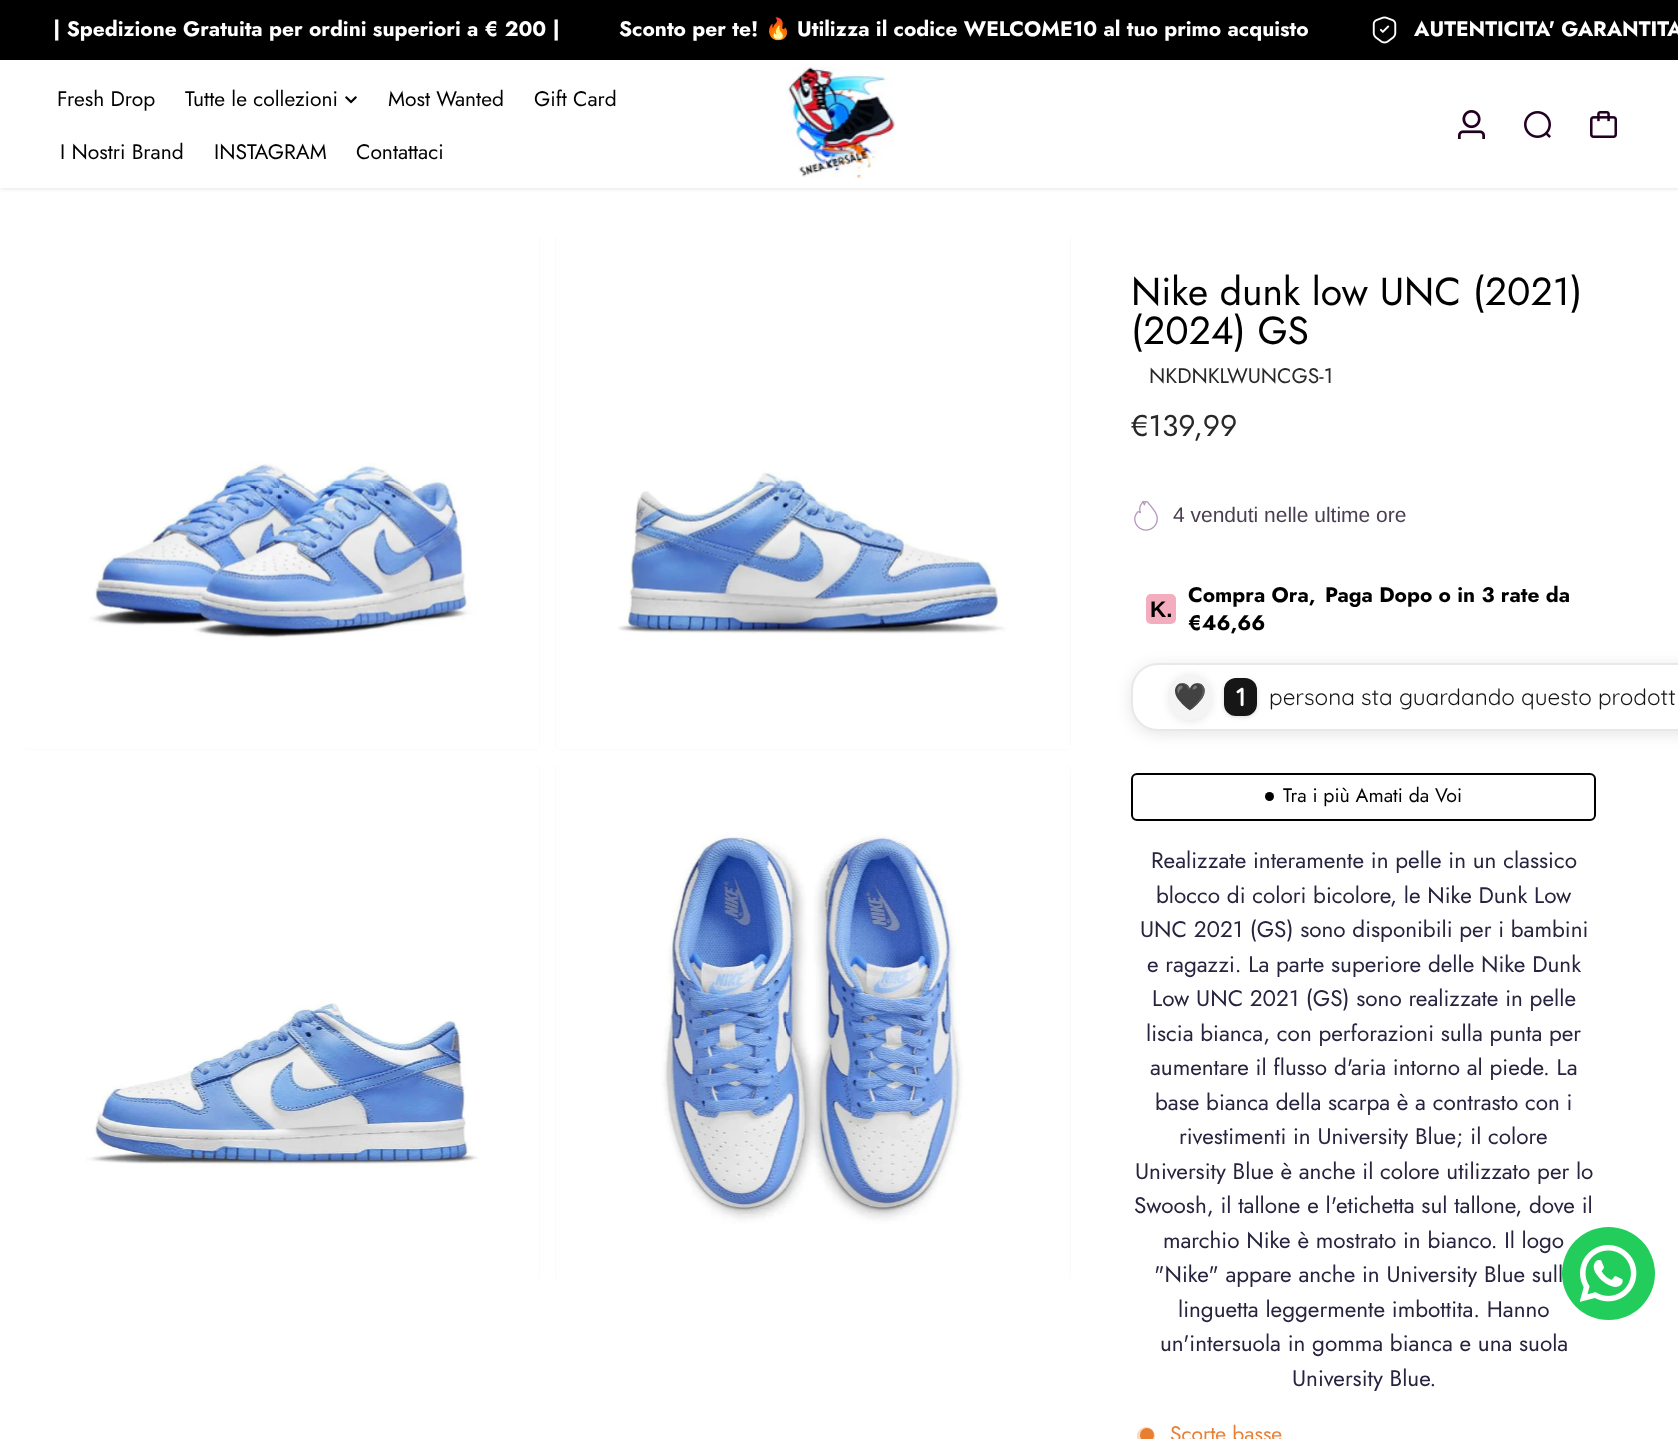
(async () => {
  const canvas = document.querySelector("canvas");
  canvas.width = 1678;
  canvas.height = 1439;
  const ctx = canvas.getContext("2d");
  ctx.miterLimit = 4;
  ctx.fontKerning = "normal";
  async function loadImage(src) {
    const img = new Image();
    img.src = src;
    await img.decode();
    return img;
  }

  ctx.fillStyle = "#ffffff";
  ctx.fillRect(0, 0, 1678, 1439);
  ctx.fillStyle = "rgba(0, 0, 0, 0.1)";
  ctx.filter = "blur(2px)";
  ctx.beginPath();
  ctx.rect(0, 62, 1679, 127);
  ctx.fill();
  ctx.filter = "none";
  ctx.fillStyle = "#000000";
  ctx.fillRect(0, 0, 1678, 60);
  ctx.drawImage(await loadImage("img/1.png"), 1372, 16, 25, 28);
  ctx.fillStyle = "#ffffff";
  ctx.fillRect(0, 60, 1678, 128);
  ctx.drawImage(await loadImage("img/2.png"), 345, 96, 12, 8);
  ctx.drawImage(await loadImage("img/3.png"), 785, 67, 111, 112);
  ctx.drawImage(await loadImage("img/4.png"), 1458, 110, 27, 29);
  ctx.drawImage(await loadImage("img/5.png"), 1524, 111, 27, 27);
  ctx.drawImage(await loadImage("img/6.png"), 1590, 111, 27, 27);
  ctx.fillStyle = "#f1f1f1";
  ctx.beginPath();
  ctx.roundRect(23, 233, 517, 517, 6);
  ctx.fill();
  ctx.drawImage(await loadImage("img/7.png"), 23, 233, 517, 517);
  ctx.beginPath();
  ctx.roundRect(555, 233, 516, 517, 6);
  ctx.fill();
  ctx.drawImage(await loadImage("img/8.png"), 555, 233, 516, 517);
  ctx.beginPath();
  ctx.roundRect(23, 765, 517, 516, 6);
  ctx.fill();
  ctx.drawImage(await loadImage("img/9.png"), 23, 765, 517, 516);
  ctx.beginPath();
  ctx.roundRect(555, 765, 516, 516, 6);
  ctx.fill();
  ctx.drawImage(await loadImage("img/10.png"), 555, 765, 516, 516);
  ctx.drawImage(await loadImage("img/11.png"), 23, 1296, 517, 143);
  ctx.drawImage(await loadImage("img/12.png"), 1134, 501, 24, 30);
  ctx.fillStyle = "#f4adbf";
  ctx.beginPath();
  ctx.roundRect(1146, 594, 30, 30, 5);
  ctx.fill();
  ctx.fillStyle = "rgba(0, 0, 0, 0.1)";
  ctx.filter = "blur(7.5px)";
  ctx.beginPath();
  ctx.roundRect(1131, 666, 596, 68, 27);
  ctx.fill();
  ctx.filter = "none";
  ctx.fillStyle = "#ffffff";
  ctx.beginPath();
  ctx.roundRect(1132, 664, 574, 66, 26);
  ctx.fill();
  ctx.strokeStyle = "#e8e8e8";
  ctx.lineWidth = 2;
  ctx.stroke();
  ctx.fillStyle = "#e8e8e8";
  ctx.filter = "blur(4px)";
  ctx.beginPath();
  ctx.roundRect(1169, 675, 43, 47, 21.5);
  ctx.fill();
  ctx.filter = "none";
  ctx.fillStyle = "#f4f4f4";
  ctx.beginPath();
  ctx.ellipse(1190, 697, 22, 23, 0, 0, Math.PI * 2);
  ctx.fill();
  ctx.fillStyle = "rgba(0, 0, 0, 0.15)";
  ctx.filter = "blur(2px)";
  ctx.beginPath();
  ctx.roundRect(1224, 680, 33, 37, 12);
  ctx.fill();
  ctx.filter = "none";
  ctx.fillStyle = "#161616";
  ctx.beginPath();
  ctx.roundRect(1224, 678, 33, 38, 12);
  ctx.fill();
  ctx.beginPath();
  ctx.roundRect(1132, 774, 463, 46, 5);
  ctx.strokeStyle = "#000000";
  ctx.stroke();
  ctx.fillStyle = "#000000";
  ctx.beginPath();
  ctx.arc(1269.5, 796.5, 4.5, 0, Math.PI * 2);
  ctx.fill();
  ctx.fillStyle = "#e97f32";
  ctx.beginPath();
  ctx.arc(1147, 1435, 7, 0, Math.PI * 2);
  ctx.fill();
  ctx.fillStyle = "rgba(233, 127, 50, 0.3)";
  ctx.beginPath();
  ctx.arc(1146, 1436, 9, 0, Math.PI * 2);
  ctx.fill();
  ctx.font = "bold 21px Jost";
  ctx.fillStyle = "#ffffff";
  ctx.fillText("| Spedizione Gratuita per ordini superiori a € 200 |", 53, 36);
  ctx.fillText("Sconto per te!", 619, 36);
  ctx.font = "bold 21px Noto Color Emoji";
  ctx.fillText("🔥", 765, 36);
  ctx.font = "bold 21px Jost";
  ctx.fillText("Utilizza il codice WELCOME10 al tuo primo acquisto", 797, 36);
  ctx.fillText("AUTENTICITA' GARANTITA", 1414, 36);
  ctx.font = "21px Jost";
  ctx.fillStyle = "#000000";
  for (const [text, x, y] of [
    ["Fresh Drop", 57, 106],
    ["Tutte le collezioni", 185, 106],
    ["Most Wanted", 388, 106],
    ["Gift Card", 534, 106],
    ["I Nostri Brand", 60, 159],
    ["INSTAGRAM", 214, 159],
    ["Contattaci", 356, 159],
  ]) {
    ctx.fillText(text, x, y);
  }
  ctx.font = "39px Jost";
  ctx.fillText("Nike dunk low UNC (2021)", 1131, 305);
  ctx.fillText("(2024) GS", 1131, 344);
  ctx.font = "21px Jost";
  ctx.fillStyle = "#282828";
  ctx.fillText("NKDNKLWUNCGS-1", 1149, 383);
  ctx.font = "30px Jost";
  ctx.fillText("€139,99", 1131, 436);
  ctx.font = "21px Liberation Sans";
  ctx.fillStyle = "#4a3f51";
  ctx.fillText("4 venduti nelle ultime ore", 1173, 522);
  ctx.font = "bold 22.5px Liberation Sans";
  ctx.fillStyle = "#000000";
  ctx.fillText("K.", 1150, 617);
  ctx.font = "bold 21px Jost";
  for (const [text, x, y] of [
    ["Compra Ora,", 1188, 602],
    ["Paga Dopo o in 3 rate da", 1325, 602],
    ["€46,66", 1188, 630],
  ]) {
    ctx.fillText(text, x, y);
  }
  ctx.font = "27px Noto Color Emoji";
  ctx.fillStyle = "#161616";
  ctx.fillText("🖤", 1173, 706);
  ctx.font = "600 26px Quicksand";
  ctx.fillStyle = "#ffffff";
  ctx.fillText("1", 1236, 706);
  ctx.font = "22.5px Quicksand";
  ctx.fillStyle = "#161616";
  ctx.fillText("persona sta guardando questo prodott", 1269, 705);
  ctx.font = "19.5px Jost";
  ctx.fillStyle = "#000000";
  ctx.fillText("Tra i più Amati da Voi", 1283, 802);
  ctx.font = "22.5px Jost";
  ctx.fillStyle = "#26243e";
  for (const [text, x, y] of [
    ["Realizzate interamente in pelle in un classico", 1151, 868],
    ["blocco di colori bicolore, le Nike Dunk Low", 1156, 903],
    ["UNC 2021 (GS) sono disponibili per i bambini", 1140, 937],
    ["e ragazzi. La parte superiore delle Nike Dunk", 1147, 972],
    ["Low UNC 2021 (GS) sono realizzate in pelle", 1152, 1006],
    ["liscia bianca, con perforazioni sulla punta per", 1146, 1041],
    ["aumentare il flusso d'aria intorno al piede. La", 1150, 1075],
    ["base bianca della scarpa è a contrasto con i", 1155, 1110],
    ["rivestimenti in University Blue; il colore", 1179, 1144],
    ["University Blue è anche il colore utilizzato per lo", 1135, 1179],
    ["Swoosh, il tallone e l'etichetta sul tallone, dove il", 1134, 1213],
    ["marchio Nike è mostrato in bianco. Il logo", 1163, 1248],
    ["\"Nike\" appare anche in University Blue sull", 1154, 1282],
    ["linguetta leggermente imbottita. Hanno", 1178, 1317],
    ["un'intersuola in gomma bianca e una suola", 1160, 1351],
    ["University Blue.", 1292, 1386],
  ]) {
    ctx.fillText(text, x, y);
  }
  ctx.font = "21px Jost";
  ctx.fillStyle = "#e97f32";
  ctx.fillText("Scorte basse", 1170, 1441);
  ctx.fillStyle = "#22cd5b";
  ctx.beginPath();
  ctx.arc(1608.5, 1273.5, 46.5, 0, Math.PI * 2);
  ctx.fill();
  ctx.drawImage(await loadImage("img/13.png"), 1580, 1245, 57, 57);
})();
